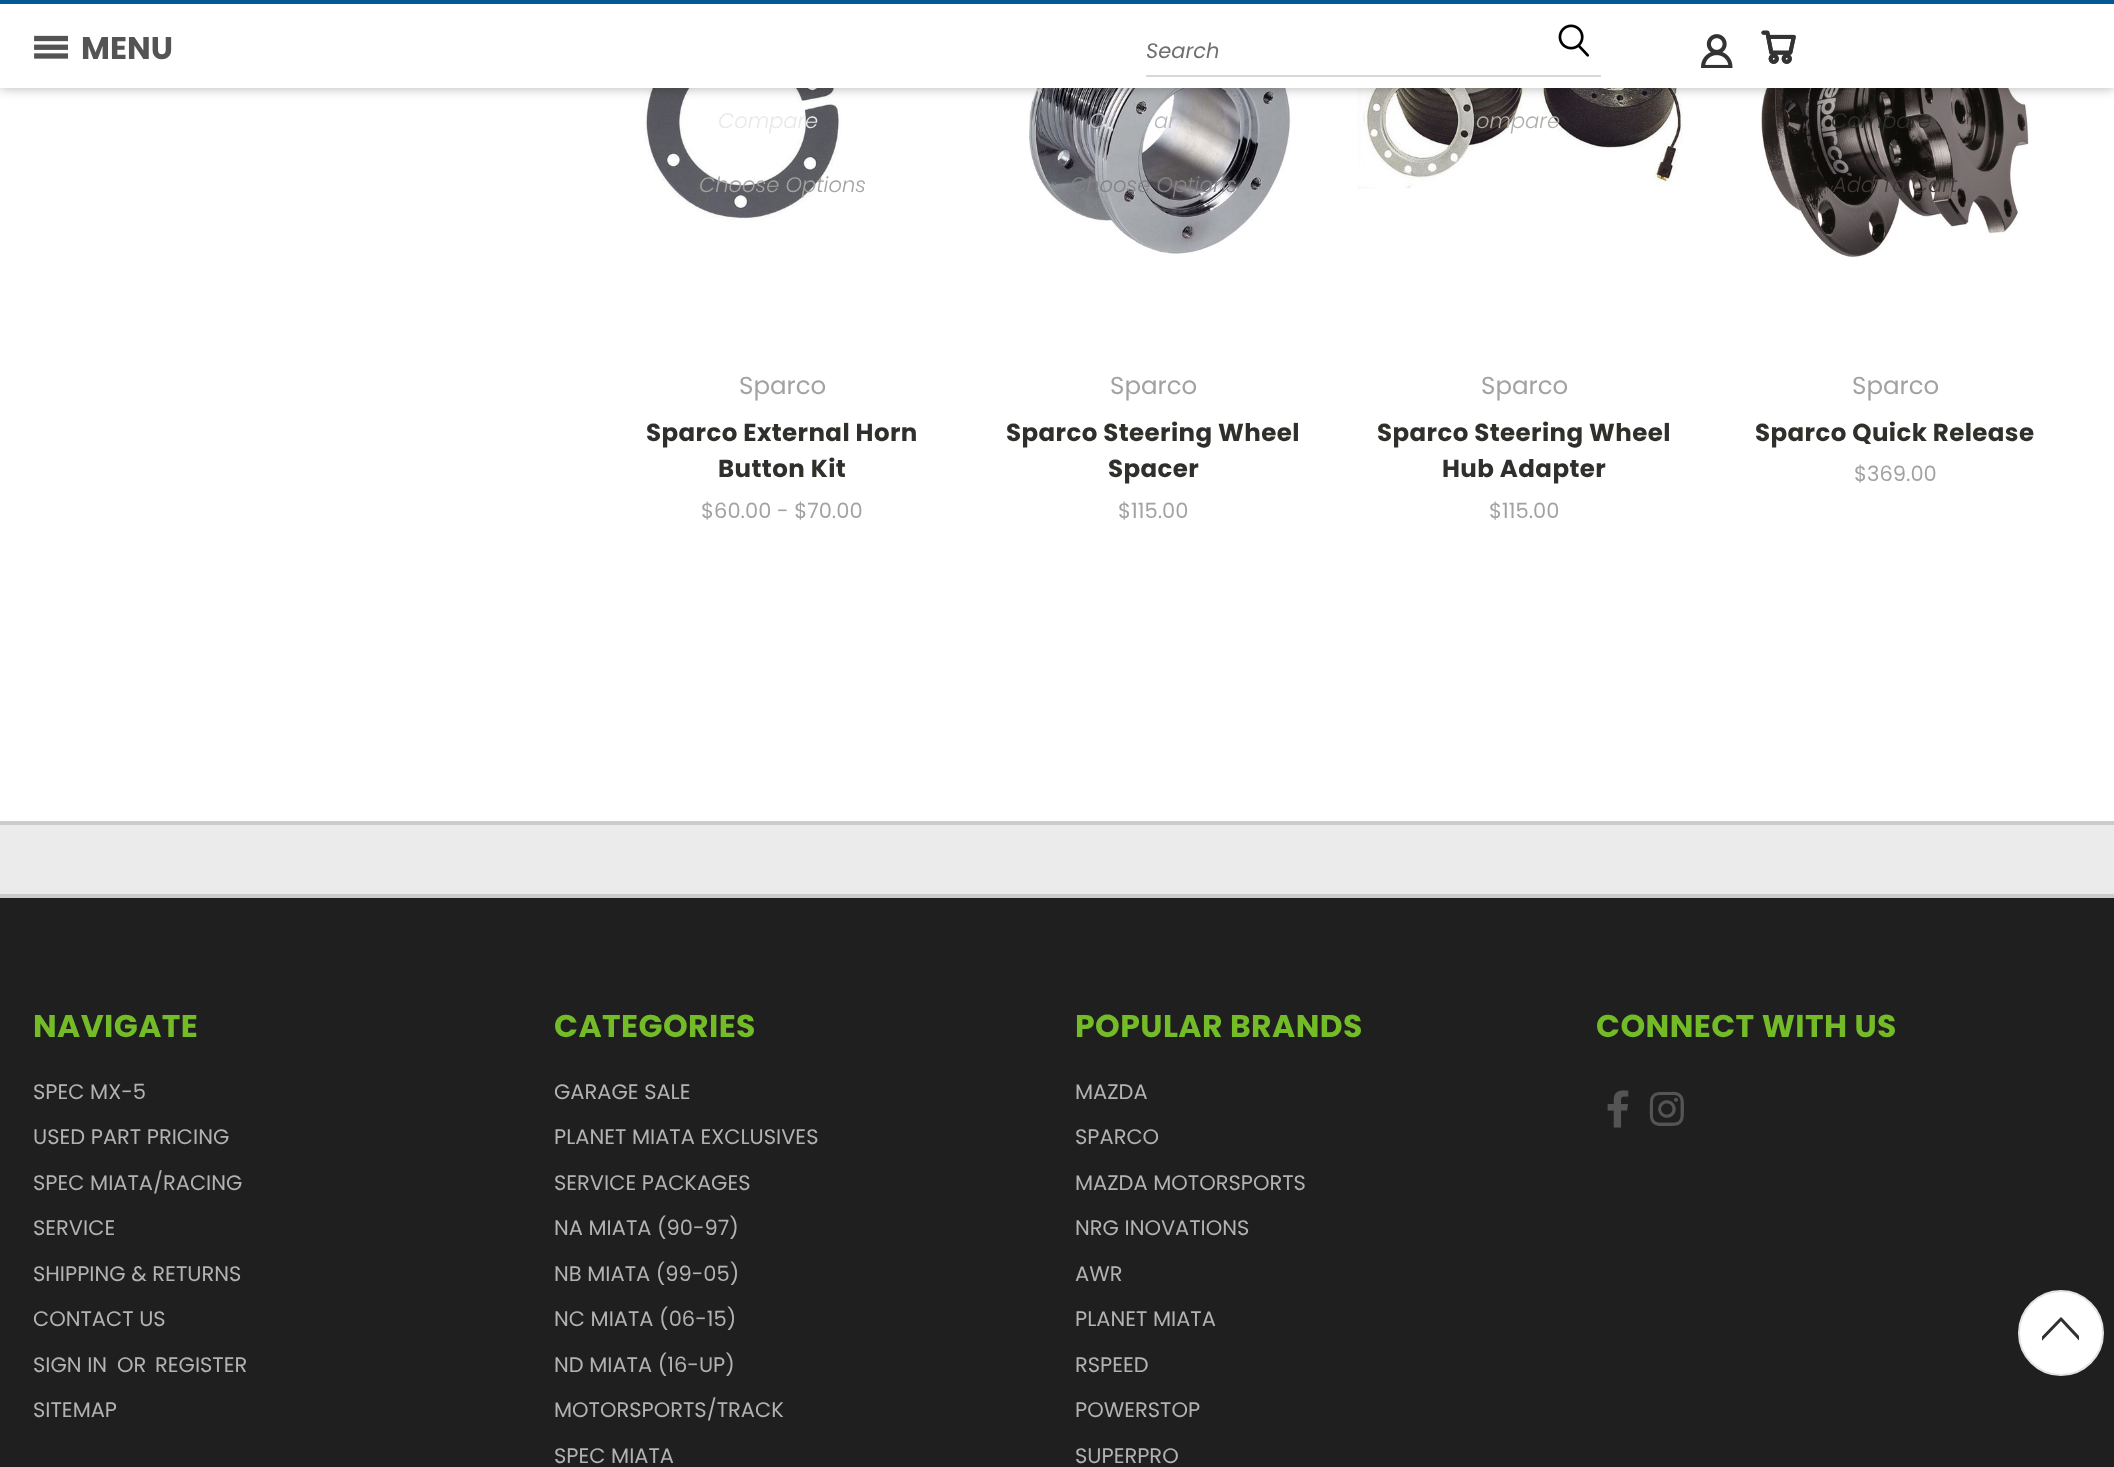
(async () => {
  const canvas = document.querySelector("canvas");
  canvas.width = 2114;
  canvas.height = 1467;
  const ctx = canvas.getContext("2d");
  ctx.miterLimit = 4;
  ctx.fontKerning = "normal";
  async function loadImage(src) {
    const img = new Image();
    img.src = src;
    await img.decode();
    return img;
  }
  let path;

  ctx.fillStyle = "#ffffff";
  ctx.fillRect(0, 0, 2114, 1467);
  ctx.drawImage(await loadImage("img/5.png"), 643, 88, 273, 133);
  ctx.drawImage(await loadImage("img/6.png"), 1029, 88, 262, 166);
  ctx.drawImage(await loadImage("img/7.png"), 1358, 88, 325, 101);
  ctx.drawImage(await loadImage("img/8.png"), 1761, 88, 268, 170);
  ctx.fillStyle = "rgba(0, 0, 0, 0.3)";
  ctx.filter = "blur(6px)";
  ctx.beginPath();
  ctx.rect(0, 0, 2114, 88);
  ctx.fill();
  ctx.filter = "none";
  ctx.fillStyle = "#ffffff";
  ctx.fillRect(0, 4, 2114, 84);
  ctx.fillStyle = "#055794";
  ctx.fillRect(0, 0, 2114, 4);
  ctx.drawImage(await loadImage("img/1.png"), 34, 35, 34, 24);
  ctx.fillStyle = "#d7d7d7";
  ctx.fillRect(1146, 75, 455, 2);
  ctx.drawImage(await loadImage("img/2.png"), 1558, 24, 32, 33);
  ctx.drawImage(await loadImage("img/3.png"), 1701, 34, 32, 34);
  ctx.drawImage(await loadImage("img/4.png"), 1761, 30, 35, 34);
  for (const [x, y, w, h, color] of [
    [0, 825, 2114, 69, "#ebebeb"],
    [0, 821, 2114, 4, "#cdcccc"],
    [0, 898, 2114, 569, "#1f1f1f"],
    [0, 894, 2114, 4, "#cdcccc"],
  ]) {
    ctx.fillStyle = color;
    ctx.fillRect(x, y, w, h);
  }
  ctx.drawImage(await loadImage("img/9.png"), 1607, 1090, 22, 38);
  ctx.drawImage(await loadImage("img/10.png"), 1649, 1091, 35, 35);
  ctx.fillStyle = "#ffffff";
  ctx.beginPath();
  ctx.arc(2061, 1333, 42, 0, Math.PI * 2);
  ctx.fill();
  ctx.strokeStyle = "#e4e3e1";
  ctx.lineWidth = 2;
  ctx.stroke();
  ctx.save();
  path = new Path2D("M2079 1317V1353.5H2042V1317Z");
  ctx.clip(path);
  path = new Path2D("M2091.5 1351.5L2061 1319L2030 1351");
  ctx.strokeStyle = "#313131";
  ctx.lineWidth = 3.1;
  ctx.lineCap = "round";
  ctx.lineJoin = "round";
  ctx.stroke(path);
  ctx.restore();
  ctx.font = "bold 31.5px Poppins";
  ctx.fillStyle = "#545454";
  ctx.fillText("MENU", 81, 59);
  ctx.font = "italic 21px Poppins";
  ctx.fillStyle = "#70706e";
  ctx.fillText("Search", 1146, 58);
  ctx.font = "italic 300 21px Poppins";
  ctx.fillStyle = "#e8e8e9";
  ctx.fillText("Compare", 718, 128);
  ctx.fillStyle = "#a2a2a2";
  ctx.fillText("Choose Options", 699, 192);
  ctx.font = "24.5px Poppins";
  ctx.fillText("Sparco", 739, 394);
  ctx.letterSpacing = "0.4px";
  ctx.font = "bold 24.5px Poppins";
  ctx.fillStyle = "#2f2f2b";
  ctx.fillText("Sparco External Horn", 646, 441);
  ctx.fillText("Button Kit", 718, 477);
  ctx.letterSpacing = "0px";
  ctx.font = "21px Poppins";
  ctx.fillStyle = "#a2a2a2";
  ctx.fillText("$60.00 - $70.00", 701, 518);
  ctx.font = "italic 300 21px Poppins";
  ctx.fillStyle = "#b9b9bd";
  ctx.fillText("C", 1089, 128);
  ctx.fillText("ar", 1154, 128);
  ctx.fillStyle = "#838388";
  ctx.fillText("Choose Options", 1070, 192);
  ctx.font = "24.5px Poppins";
  ctx.fillStyle = "#a2a2a2";
  ctx.fillText("Sparco", 1110, 394);
  ctx.letterSpacing = "0.4px";
  ctx.font = "bold 24.5px Poppins";
  ctx.fillStyle = "#2f2f2b";
  ctx.fillText("Sparco Steering Wheel", 1006, 441);
  ctx.fillText("Spacer", 1108, 477);
  ctx.letterSpacing = "0px";
  ctx.font = "21px Poppins";
  ctx.fillStyle = "#a2a2a2";
  ctx.fillText("$115.00", 1118, 518);
  ctx.font = "italic 300 21px Poppins";
  ctx.fillStyle = "#b0adab";
  ctx.fillText("ompare", 1476, 128);
  ctx.font = "24.5px Poppins";
  ctx.fillStyle = "#a2a2a2";
  ctx.fillText("Sparco", 1481, 394);
  ctx.letterSpacing = "0.4px";
  ctx.font = "bold 24.5px Poppins";
  ctx.fillStyle = "#2f2f2b";
  ctx.fillText("Sparco Steering Wheel", 1377, 441);
  ctx.fillText("Hub Adapter", 1442, 477);
  ctx.letterSpacing = "0px";
  ctx.font = "21px Poppins";
  ctx.fillStyle = "#a2a2a2";
  ctx.fillText("$115.00", 1489, 518);
  ctx.font = "italic 300 21px Poppins";
  ctx.fillStyle = "#2f2f2b";
  ctx.fillText("Compare", 1831, 128);
  ctx.fillStyle = "#3f3a38";
  ctx.fillText("Add To Cart", 1833, 192);
  ctx.font = "24.5px Poppins";
  ctx.fillStyle = "#a2a2a2";
  ctx.fillText("Sparco", 1852, 394);
  ctx.letterSpacing = "0.4px";
  ctx.font = "bold 24.5px Poppins";
  ctx.fillStyle = "#2f2f2b";
  ctx.fillText("Sparco Quick Release", 1755, 441);
  ctx.letterSpacing = "0px";
  ctx.font = "21px Poppins";
  ctx.fillStyle = "#a2a2a2";
  ctx.fillText("$369.00", 1854, 481);
  ctx.letterSpacing = "0.4px";
  ctx.font = "bold 31.5px Poppins";
  ctx.fillStyle = "#74bb28";
  ctx.fillText("NAVIGATE", 33, 1037);
  ctx.letterSpacing = "0px";
  ctx.font = "21px Poppins";
  ctx.fillStyle = "#b2b2b2";
  for (const [text, x, y] of [
    ["SPEC MX-5", 33, 1099],
    ["USED PART PRICING", 33, 1144],
    ["SPEC MIATA/RACING", 33, 1190],
    ["SERVICE", 33, 1235],
    ["SHIPPING & RETURNS", 33, 1281],
    ["CONTACT US", 33, 1326],
    ["SIGN IN", 33, 1372],
    ["OR", 117, 1372],
    ["REGISTER", 155, 1372],
    ["SITEMAP", 33, 1417],
  ]) {
    ctx.fillText(text, x, y);
  }
  ctx.letterSpacing = "0.4px";
  ctx.font = "bold 31.5px Poppins";
  ctx.fillStyle = "#74bb28";
  ctx.fillText("CATEGORIES", 554, 1037);
  ctx.letterSpacing = "0px";
  ctx.font = "21px Poppins";
  ctx.fillStyle = "#b2b2b2";
  for (const [text, x, y] of [
    ["GARAGE SALE", 554, 1099],
    ["PLANET MIATA EXCLUSIVES", 554, 1144],
    ["SERVICE PACKAGES", 554, 1190],
    ["NA MIATA (90-97)", 554, 1235],
    ["NB MIATA (99-05)", 554, 1281],
    ["NC MIATA (06-15)", 554, 1326],
    ["ND MIATA (16-UP)", 554, 1372],
    ["MOTORSPORTS/TRACK", 554, 1417],
    ["SPEC MIATA", 554, 1463],
  ]) {
    ctx.fillText(text, x, y);
  }
  ctx.letterSpacing = "0.4px";
  ctx.font = "bold 31.5px Poppins";
  ctx.fillStyle = "#74bb28";
  ctx.fillText("POPULAR BRANDS", 1075, 1037);
  ctx.letterSpacing = "0px";
  ctx.font = "21px Poppins";
  ctx.fillStyle = "#b2b2b2";
  for (const [text, x, y] of [
    ["MAZDA", 1075, 1099],
    ["SPARCO", 1075, 1144],
    ["MAZDA MOTORSPORTS", 1075, 1190],
    ["NRG INOVATIONS", 1075, 1235],
    ["AWR", 1075, 1281],
    ["PLANET MIATA", 1075, 1326],
    ["RSPEED", 1075, 1372],
    ["POWERSTOP", 1075, 1417],
    ["SUPERPRO", 1075, 1463],
  ]) {
    ctx.fillText(text, x, y);
  }
  ctx.letterSpacing = "0.4px";
  ctx.font = "bold 31.5px Poppins";
  ctx.fillStyle = "#74bb28";
  ctx.fillText("CONNECT WITH US", 1596, 1037);
})();
